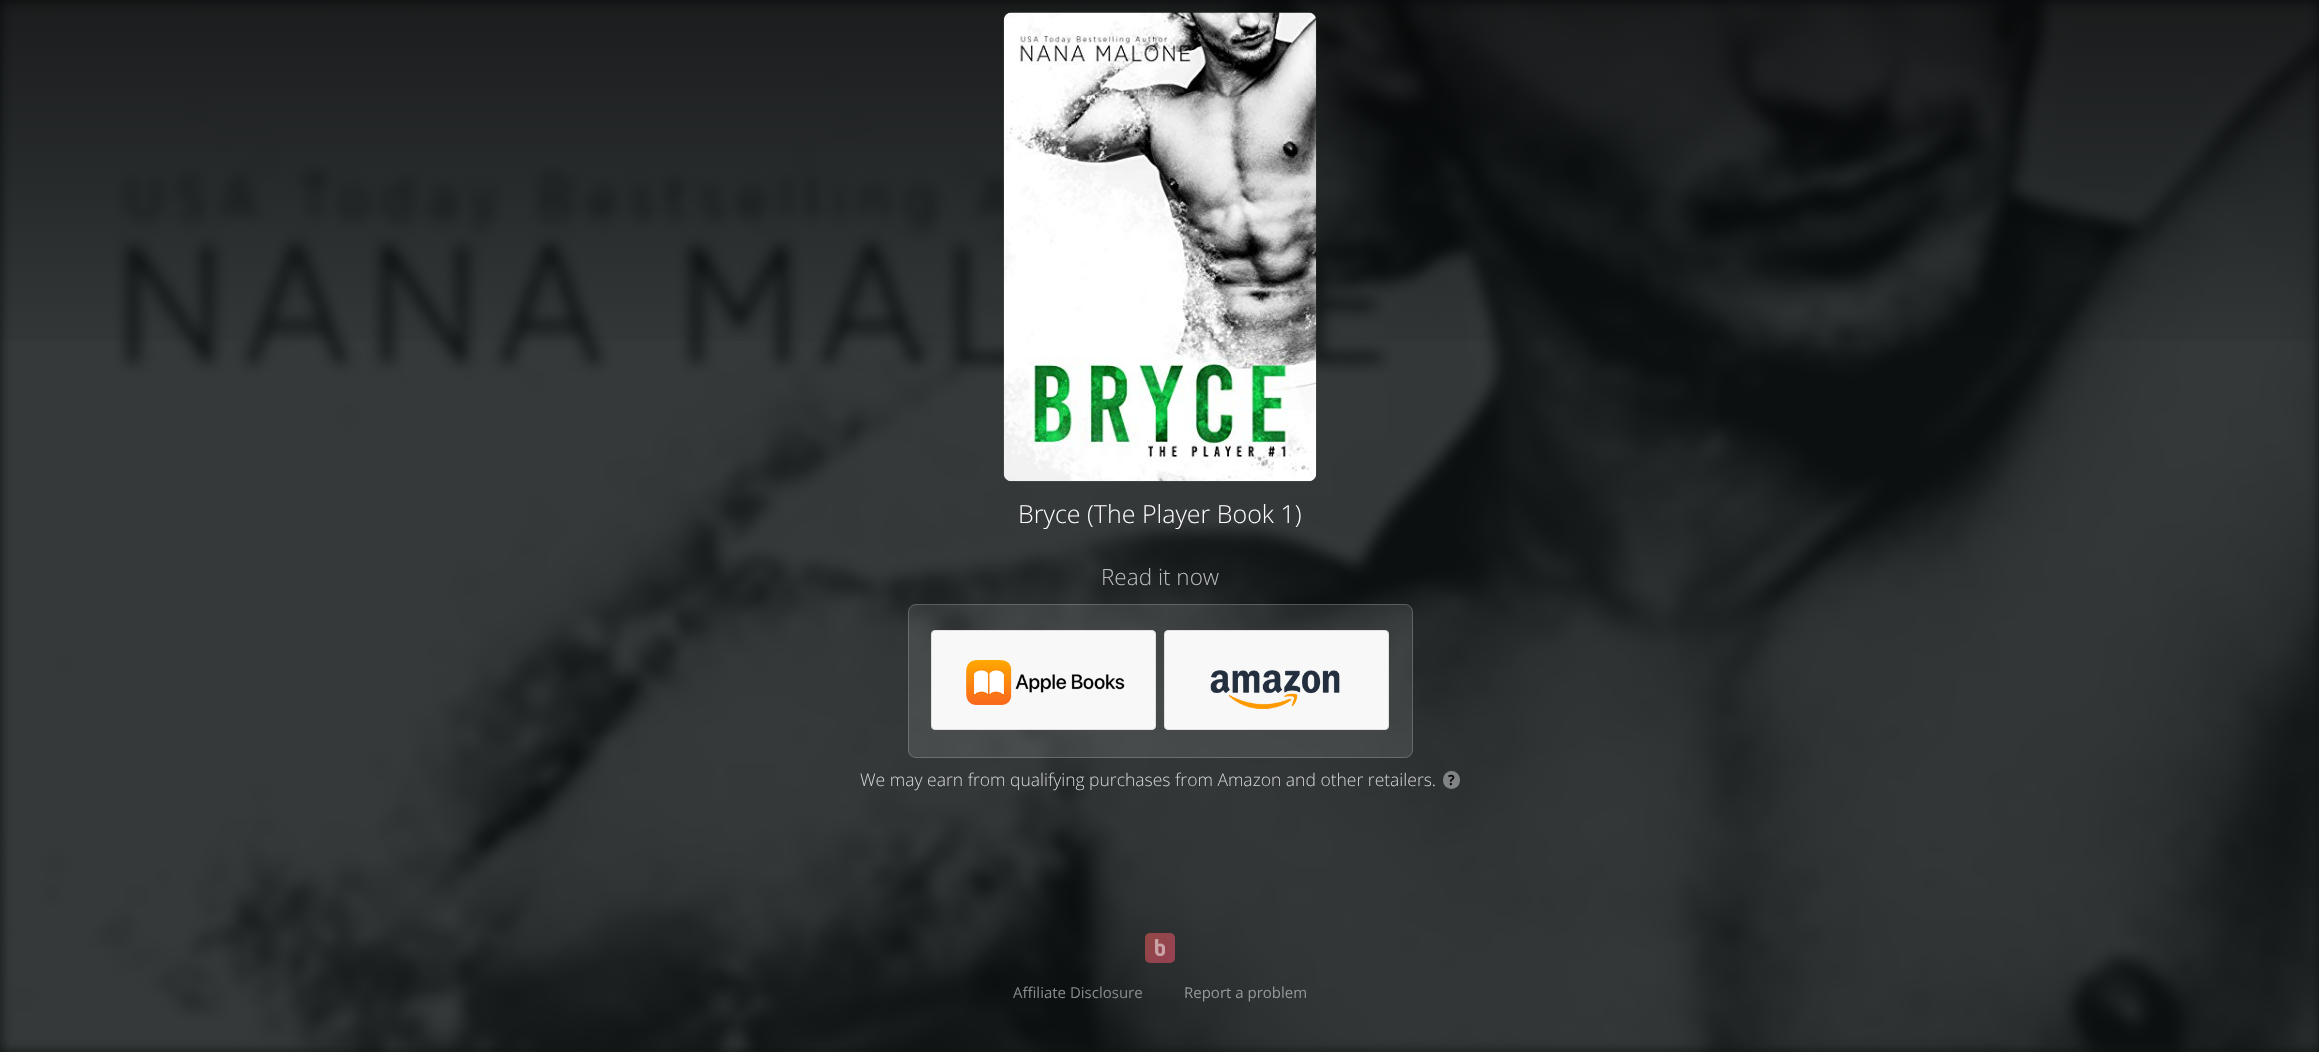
(async () => {
  const canvas = document.querySelector("canvas");
  canvas.width = 2319;
  canvas.height = 1052;
  const ctx = canvas.getContext("2d");
  ctx.miterLimit = 4;
  ctx.fontKerning = "normal";
  async function loadImage(src) {
    const img = new Image();
    img.src = src;
    await img.decode();
    return img;
  }
  let gradient;

  ctx.fillStyle = "#0f1415";
  ctx.fillRect(0, 0, 2319, 1052);
  ctx.drawImage(await loadImage("img/1.png"), 0, 0, 2319, 1052);
  gradient = ctx.createLinearGradient(1160, 0, 1160, 375);
  gradient.addColorStop(0, "rgba(0, 0, 0, 0.5)");
  gradient.addColorStop(1, "rgba(0, 0, 0, 0)");
  ctx.fillStyle = gradient;
  ctx.fillRect(0, 0, 2319, 341);
  ctx.drawImage(await loadImage("img/2.png"), 1003, 12, 314, 470);
  ctx.fillStyle = "rgba(255, 255, 255, 0.1)";
  ctx.beginPath();
  ctx.roundRect(908, 604, 505, 154, 8);
  ctx.fill();
  ctx.beginPath();
  ctx.roundRect(908.5, 604.5, 504, 153, 7.5);
  ctx.strokeStyle = "rgba(255, 255, 255, 0.2)";
  ctx.stroke();
  ctx.fillStyle = "#f8f8f8";
  ctx.beginPath();
  ctx.roundRect(931.5, 630.5, 224, 99, 3.5);
  ctx.fill();
  ctx.strokeStyle = "#e0e0e0";
  ctx.stroke();
  ctx.drawImage(await loadImage("img/3.png"), 966, 660, 159, 45);
  ctx.beginPath();
  ctx.roundRect(1164.5, 630.5, 224, 99, 3.5);
  ctx.fill();
  ctx.stroke();
  ctx.drawImage(await loadImage("img/4.png"), 1210, 670, 130, 39);
  ctx.fillStyle = "#818484";
  ctx.beginPath();
  ctx.roundRect(1443, 771, 17, 18, 8.5);
  ctx.fill();
  gradient = ctx.createLinearGradient(1144, 933, 1176, 962);
  gradient.addColorStop(0, "rgba(249, 98, 89, 0.5)");
  gradient.addColorStop(1, "rgba(255, 83, 122, 0.5)");
  ctx.fillStyle = gradient;
  ctx.beginPath();
  ctx.roundRect(1145, 933, 30, 30, 5);
  ctx.fill();
  ctx.drawImage(await loadImage("img/5.png"), 1155, 939, 10, 17);
  ctx.font = "300 25px Open Sans";
  ctx.fillStyle = "#ffffff";
  ctx.fillText("Bryce (The Player Book 1)", 1018, 523);
  ctx.font = "300 22.5px Open Sans";
  ctx.fillStyle = "#bcbdbd";
  ctx.fillText("Read it now", 1101, 585);
  ctx.font = "300 17.5px Open Sans";
  ctx.fillStyle = "#d6d7d7";
  ctx.fillText("We may earn from qualifying purchases from Amazon and other retailers.", 860, 786);
  ctx.font = "bold 14px Open Sans";
  ctx.fillStyle = "#090a0a";
  ctx.fillText("?", 1448, 785);
  ctx.font = "15px Open Sans";
  ctx.fillStyle = "#898c8c";
  ctx.fillText("Affiliate Disclosure", 1013, 998);
  ctx.fillStyle = "#969899";
  ctx.fillText("Report a problem", 1184, 998);
})();
